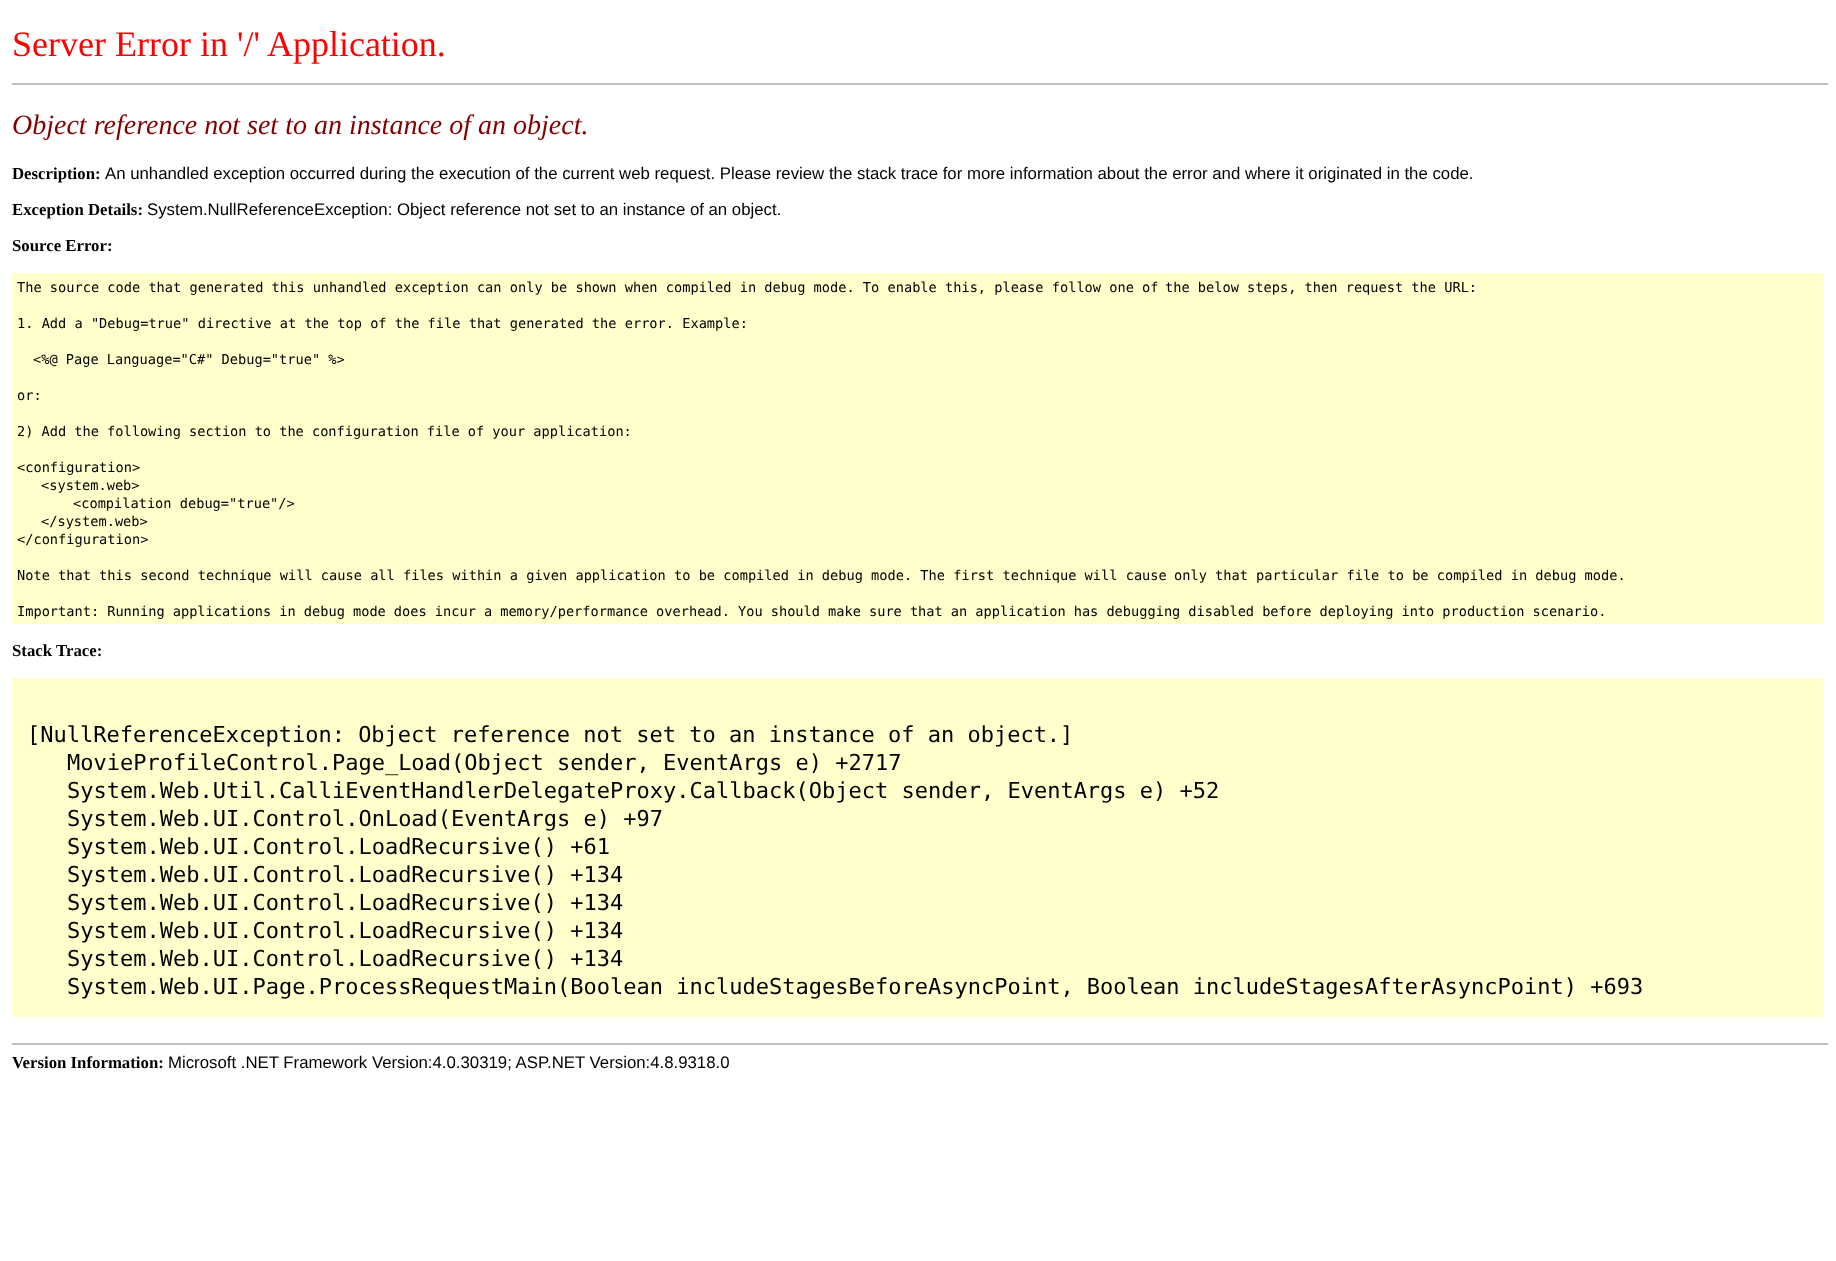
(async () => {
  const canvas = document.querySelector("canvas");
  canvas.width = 1836;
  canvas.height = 1261;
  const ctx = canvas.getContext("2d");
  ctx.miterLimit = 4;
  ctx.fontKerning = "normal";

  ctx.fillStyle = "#ffffff";
  ctx.fillRect(0, 0, 1836, 1261);
  for (const [x, y, w, h, color] of [
    [12, 83, 1816, 2, "#c0c0c0"],
    [12, 273, 1812, 351, "#ffffcc"],
    [12, 678, 1812, 339, "#ffffcc"],
    [12, 1043, 1816, 2, "#c0c0c0"],
  ]) {
    ctx.fillStyle = color;
    ctx.fillRect(x, y, w, h);
  }
  ctx.font = "36px Liberation Serif";
  ctx.fillStyle = "#ff0000";
  ctx.fillText("Server Error in '/' Application.", 12, 56);
  ctx.font = "italic 28px Liberation Serif";
  ctx.fillStyle = "#800000";
  ctx.fillText("Object reference not set to an instance of an object.", 12, 134);
  ctx.font = "bold 16.8px Liberation Serif";
  ctx.fillStyle = "#000000";
  ctx.fillText("Description:", 12, 179);
  ctx.font = "16.8px Liberation Sans";
  ctx.fillText("An unhandled exception occurred during the execution of the current web request. Please review the stack trace for more information about the error and where it originated in the code.", 105, 179);
  ctx.font = "bold 16.8px Liberation Serif";
  ctx.fillText("Exception Details:", 12, 215);
  ctx.font = "16.8px Liberation Sans";
  ctx.fillText("System.NullReferenceException: Object reference not set to an instance of an object.", 147, 215);
  ctx.font = "bold 16.8px Liberation Serif";
  ctx.fillText("Source Error:", 12, 251);
  ctx.font = "13.65px DejaVu Sans Mono";
  ctx.fillText("The source code that generated this unhandled exception can only be shown when compiled in debug mode. To enable this, please follow one of", 17, 292);
  ctx.fillText("the below steps, then request the URL:", 1165, 292);
  ctx.fillText("1. Add a \"Debug=true\" directive at the top of the file that generated the error. Example:", 17, 328);
  ctx.wordSpacing = "-0.1px";
  ctx.fillText("<%@ Page Language=\"C#\" Debug=\"true\" %>", 33, 364);
  ctx.wordSpacing = "0px";
  ctx.fillText("or:", 17, 400);
  ctx.wordSpacing = "-0.1px";
  ctx.fillText("2) Add the following section to the configuration file of your application:", 17, 436);
  ctx.wordSpacing = "0px";
  for (const [text, x, y] of [
    ["<configuration>", 17, 472],
    ["<system.web>", 41, 490],
    ["<compilation debug=\"true\"/>", 73, 508],
    ["<\/system.web>", 41, 526],
    ["<\/configuration>", 17, 544],
    ["Note that this second technique will cause all files within a given application to be compiled in debug mode. The first technique will cause", 17, 580],
    ["only that particular file to be compiled in debug mode.", 1174, 580],
  ]) {
    ctx.fillText(text, x, y);
  }
  ctx.wordSpacing = "-0.15px";
  ctx.fillText("Important: Running applications in debug mode does incur a memory/performance overhead. You should make sure that an application has debugging disabled before deploying into production scenario.", 17, 616);
  ctx.wordSpacing = "0px";
  ctx.font = "bold 16.8px Liberation Serif";
  ctx.fillText("Stack Trace:", 12, 656);
  ctx.font = "22px DejaVu Sans Mono";
  for (const [text, x, y] of [
    ["[NullReferenceException: Object reference not set to an instance of an object.]", 27, 742],
    ["MovieProfileControl.Page_Load(Object sender, EventArgs e) +2717", 67, 770],
    ["System.Web.Util.CalliEventHandlerDelegateProxy.Callback(Object sender, EventArgs e) +52", 67, 798],
    ["System.Web.UI.Control.OnLoad(EventArgs e) +97", 67, 826],
    ["System.Web.UI.Control.LoadRecursive() +61", 67, 854],
    ["System.Web.UI.Control.LoadRecursive() +134", 67, 882],
    ["System.Web.UI.Control.LoadRecursive() +134", 67, 910],
    ["System.Web.UI.Control.LoadRecursive() +134", 67, 938],
    ["System.Web.UI.Control.LoadRecursive() +134", 67, 966],
    ["System.Web.UI.Page.ProcessRequestMain(Boolean includeStagesBeforeAsyncPoint, Boolean includeStagesAfterAsyncPoint) +693", 67, 994],
  ]) {
    ctx.fillText(text, x, y);
  }
  ctx.font = "bold 16.8px Liberation Serif";
  ctx.fillText("Version Information:", 12, 1068);
  ctx.font = "16.8px Liberation Sans";
  ctx.fillText("Microsoft .NET Framework Version:4.0.30319; ASP.NET Version:4.8.9318.0", 168, 1068);
})();
